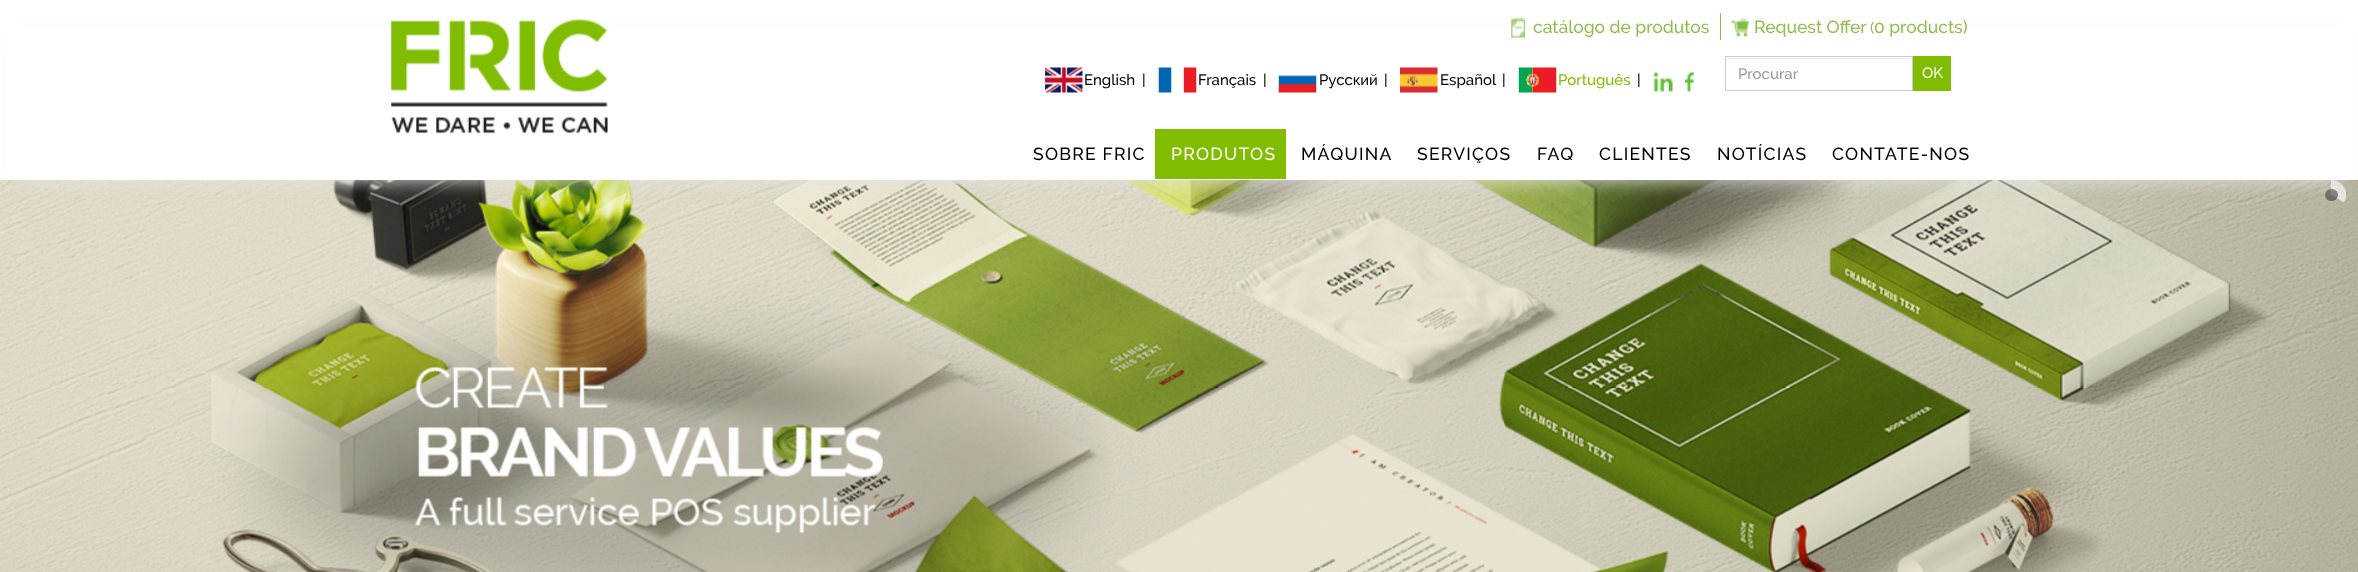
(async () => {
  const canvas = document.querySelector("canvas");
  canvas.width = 2358;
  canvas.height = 572;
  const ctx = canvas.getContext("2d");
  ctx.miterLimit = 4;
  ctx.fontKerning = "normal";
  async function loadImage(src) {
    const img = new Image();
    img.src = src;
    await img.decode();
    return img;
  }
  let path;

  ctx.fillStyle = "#ffffff";
  ctx.fillRect(0, 0, 2358, 572);
  ctx.drawImage(await loadImage("img/11.png"), 0, 180, 2358, 392);
  ctx.save();
  ctx.beginPath();
  ctx.rect(2331, 180, 15, 30);
  ctx.clip();
  ctx.fillStyle = "rgba(255, 255, 255, 0.65)";
  path = new Path2D("M2344 202.5L2318.5 187.5C2320.5 184 2323.5 182 2327 180.5C2339.5 176.5 2351.5 191 2344 202.5Z");
  ctx.fill(path);
  ctx.restore();
  ctx.fillStyle = "rgba(68, 68, 68, 0.65)";
  ctx.beginPath();
  ctx.roundRect(2325, 189, 13, 12, 6);
  ctx.fill();
  ctx.fillStyle = "#e1e1e1";
  ctx.filter = "blur(9.5px)";
  ctx.beginPath();
  ctx.rect(19, 38, 2321, 142);
  ctx.fill();
  ctx.filter = "none";
  ctx.fillStyle = "#ffffff";
  ctx.fillRect(6, 25, 2347, 154);
  ctx.fillRect(10, 179, 2339, 1);
  ctx.drawImage(await loadImage("img/1.png"), 391, 19, 217, 115);
  ctx.fillStyle = "#94bc4d";
  ctx.fillRect(1720, 13, 1, 27);
  ctx.drawImage(await loadImage("img/2.png"), 1511, 18, 15, 20);
  ctx.drawImage(await loadImage("img/3.png"), 1731, 18, 18, 19);
  ctx.drawImage(await loadImage("img/4.png"), 1045, 67, 38, 26);
  ctx.drawImage(await loadImage("img/5.png"), 1158, 67, 39, 26);
  ctx.drawImage(await loadImage("img/6.png"), 1278, 75, 39, 18);
  ctx.drawImage(await loadImage("img/7.png"), 1400, 67, 38, 26);
  ctx.drawImage(await loadImage("img/8.png"), 1518, 67, 39, 26);
  ctx.drawImage(await loadImage("img/9.png"), 1653, 72, 20, 20);
  ctx.drawImage(await loadImage("img/10.png"), 1685, 72, 9, 20);
  ctx.fillStyle = "#ececec";
  ctx.fillRect(1726, 58, 185, 1);
  ctx.strokeStyle = "#cccccc";
  ctx.strokeRect(1725.5, 56.5, 187, 34);
  ctx.fillStyle = "#80bd01";
  ctx.fillRect(1913, 56, 38, 35);
  ctx.fillRect(1155, 129, 131, 50);
  ctx.font = "500 17.5px Raleway";
  ctx.fillStyle = "#94bc4d";
  ctx.fillText("catálogo de produtos", 1533, 33);
  ctx.fillText("Request Offer", 1754, 33);
  ctx.font = "500 15px Raleway";
  ctx.fillText("(", 1870, 33);
  ctx.font = "500 17.5px Raleway";
  ctx.fillText("0 products)", 1874, 33);
  ctx.font = "500 15px Raleway";
  ctx.fillStyle = "#000000";
  for (const [text, x, y] of [
    ["English", 1084, 85],
    ["|", 1142, 85],
    ["Français", 1198, 85],
    ["|", 1263, 85],
    ["Pусский", 1319, 85],
    ["|", 1384, 85],
    ["Español", 1440, 85],
    ["|", 1502, 85],
  ]) {
    ctx.fillText(text, x, y);
  }
  ctx.fillStyle = "#80bd01";
  ctx.fillText("Português", 1558, 85);
  ctx.fillStyle = "#000000";
  ctx.fillText("|", 1637, 85);
  ctx.fillStyle = "#999999";
  ctx.fillText("Procurar", 1738, 79);
  ctx.fillStyle = "#ffffff";
  ctx.fillText("OK", 1922, 78);
  ctx.letterSpacing = "1.25px";
  ctx.font = "500 17.5px Raleway";
  ctx.fillStyle = "#000000";
  ctx.fillText("SOBRE FRIC", 1033, 160);
  ctx.fillStyle = "#ffffff";
  ctx.fillText("PRODUTOS", 1171, 160);
  ctx.fillStyle = "#000000";
  for (const [text, x, y] of [
    ["MÁQUINA", 1301, 160],
    ["SERVIÇOS", 1417, 160],
    ["FAQ", 1537, 160],
    ["CLIENTES", 1599, 160],
    ["NOTÍCIAS", 1717, 160],
    ["CONTATE-NOS", 1832, 160],
  ]) {
    ctx.fillText(text, x, y);
  }
})();
